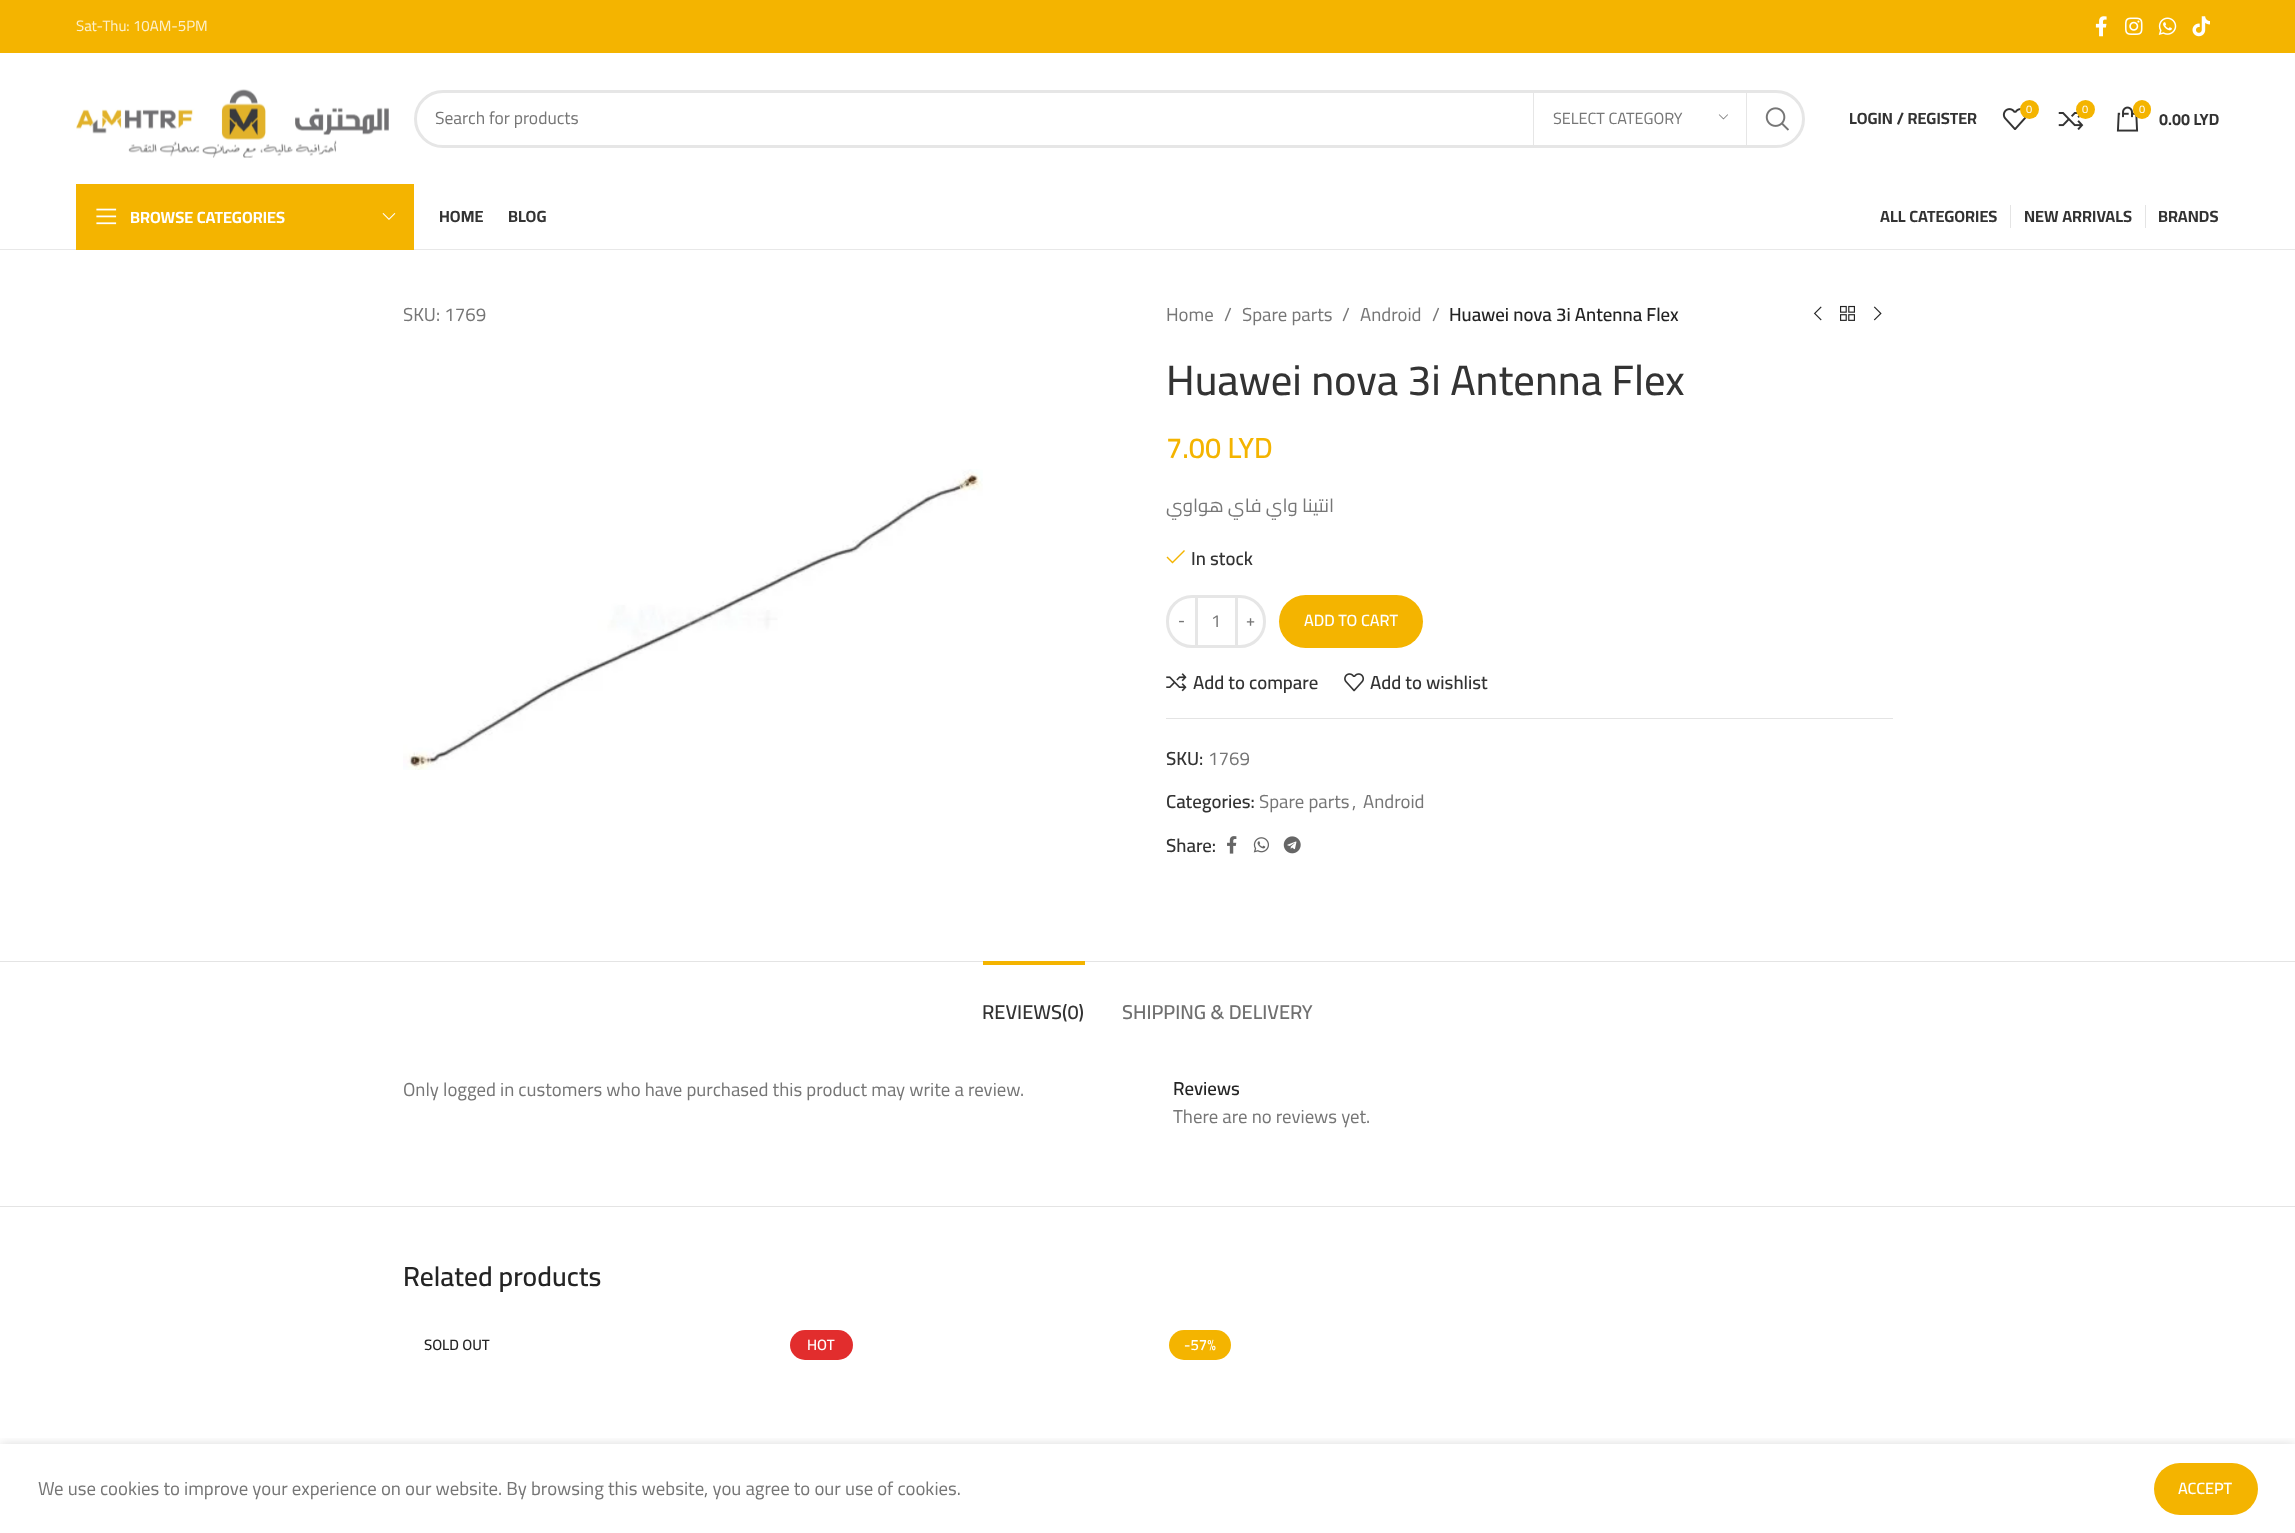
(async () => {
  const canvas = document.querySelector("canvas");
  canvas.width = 2295;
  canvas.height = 1533;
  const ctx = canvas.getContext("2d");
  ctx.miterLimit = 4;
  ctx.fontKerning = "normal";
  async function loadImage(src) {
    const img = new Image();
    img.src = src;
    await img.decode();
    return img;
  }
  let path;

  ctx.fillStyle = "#ffffff";
  ctx.fillRect(0, 0, 2295, 1533);
  ctx.fillStyle = "#f4b400";
  ctx.fillRect(0, 0, 2295, 53);
  ctx.drawImage(await loadImage("img/1.png"), 2095, 16, 12, 21);
  ctx.drawImage(await loadImage("img/2.png"), 2125, 17, 18, 18);
  ctx.drawImage(await loadImage("img/3.png"), 2158, 17, 19, 18);
  ctx.drawImage(await loadImage("img/4.png"), 2192, 16, 18, 21);
  ctx.drawImage(await loadImage("img/5.png"), 76, 89, 313, 69);
  ctx.beginPath();
  ctx.roundRect(415.5, 91.5, 1388, 55, 27.5);
  ctx.strokeStyle = "#e6e6e6";
  ctx.lineWidth = 3;
  ctx.stroke();
  ctx.fillStyle = "#e6e6e6";
  ctx.fillRect(1746, 93, 1, 52);
  ctx.fillRect(1533, 93, 1, 52);
  ctx.drawImage(await loadImage("img/6.png"), 1718, 114, 10, 6);
  ctx.drawImage(await loadImage("img/7.png"), 1765, 107, 24, 24);
  ctx.drawImage(await loadImage("img/8.png"), 2002, 108, 25, 22);
  ctx.fillStyle = "#f4b400";
  ctx.beginPath();
  ctx.arc(2029.5, 109.5, 9.5, 0, Math.PI * 2);
  ctx.fill();
  ctx.drawImage(await loadImage("img/9.png"), 2058, 112, 26, 18);
  ctx.beginPath();
  ctx.arc(2085.5, 109.5, 9.5, 0, Math.PI * 2);
  ctx.fill();
  ctx.drawImage(await loadImage("img/10.png"), 2116, 106, 23, 26);
  ctx.beginPath();
  ctx.roundRect(2133, 100, 18, 19, 9);
  ctx.fill();
  ctx.fillStyle = "#e8e8e8";
  ctx.fillRect(0, 249, 2295, 1);
  ctx.fillStyle = "#f4b400";
  ctx.fillRect(76, 184, 338, 66);
  ctx.drawImage(await loadImage("img/11.png"), 96, 208, 21, 17);
  ctx.drawImage(await loadImage("img/12.png"), 382, 213, 14, 7);
  ctx.fillStyle = "#e4e4e4";
  ctx.fillRect(2010, 205, 1, 23);
  ctx.fillRect(2145, 205, 1, 23);
  ctx.drawImage(await loadImage("img/13.png"), 403, 469, 580, 301);
  ctx.drawImage(await loadImage("img/14.png"), 1813, 306, 9, 15);
  ctx.drawImage(await loadImage("img/15.png"), 1840, 305, 15, 16);
  ctx.drawImage(await loadImage("img/16.png"), 1873, 306, 9, 15);
  ctx.fillStyle = "#f4b400";
  path = new Path2D("M1185 551L1184 550L1172.5 561.5L1167.5 556.5L1166.5 557.5L1172.5 563.5Z");
  ctx.fill(path);
  ctx.beginPath();
  ctx.roundRect(1167.5, 596.5, 29, 50, [24.5, 0, 0, 24.5]);
  ctx.stroke();
  ctx.fillStyle = "#e6e6e6";
  ctx.fillRect(1198, 595, 37, 3);
  ctx.fillRect(1198, 645, 37, 3);
  ctx.beginPath();
  ctx.roundRect(1236.5, 596.5, 28, 50, [0, 24.5, 24.5, 0]);
  ctx.stroke();
  ctx.fillStyle = "#f4b400";
  ctx.beginPath();
  ctx.roundRect(1279, 595, 144, 53, 26.5);
  ctx.fill();
  ctx.drawImage(await loadImage("img/17.png"), 1166, 673, 21, 19);
  ctx.drawImage(await loadImage("img/18.png"), 1344, 673, 21, 19);
  ctx.fillStyle = "#e4e4e4";
  ctx.fillRect(1166, 718, 727, 1);
  ctx.drawImage(await loadImage("img/19.png"), 1227, 836, 10, 18);
  ctx.drawImage(await loadImage("img/20.png"), 1253, 837, 16, 16);
  ctx.drawImage(await loadImage("img/21.png"), 1283, 836, 18, 18);
  for (const [x, y, w, h, color] of [
    [0, 961, 2295, 1, "#e4e4e4"],
    [0, 1206, 2295, 1, "#e4e4e4"],
    [983, 961, 102, 4, "#f4b400"],
  ]) {
    ctx.fillStyle = color;
    ctx.fillRect(x, y, w, h);
  }
  ctx.fillStyle = "#e22d2d";
  ctx.beginPath();
  ctx.roundRect(790, 1330, 63, 30, 15);
  ctx.fill();
  ctx.fillStyle = "#f4b400";
  ctx.beginPath();
  ctx.roundRect(1169, 1330, 62, 30, 15);
  ctx.fill();
  ctx.save();
  ctx.beginPath();
  ctx.rect(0, 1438, 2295, 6);
  ctx.clip();
  ctx.fillStyle = "rgba(0, 0, 0, 0.14)";
  ctx.filter = "blur(5.5px)";
  ctx.beginPath();
  ctx.rect(0, 1444, 2295, 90);
  ctx.fill();
  ctx.filter = "none";
  ctx.restore();
  ctx.beginPath();
  ctx.roundRect(2154, 1463, 104, 52, 26);
  ctx.fill();
  ctx.font = "15px Cairo";
  ctx.fillStyle = "#fdf0cc";
  ctx.fillText("Sat-Thu: 10AM-5PM", 76, 31);
  ctx.font = "17.5px Cairo";
  ctx.fillStyle = "#767676";
  ctx.fillText("Search for products", 435, 124);
  ctx.font = "16.25px Cairo";
  ctx.fillText("SELECT CATEGORY", 1553, 124);
  ctx.font = "bold 16.25px Cairo";
  ctx.fillStyle = "#333333";
  ctx.fillText("LOGIN / REGISTER", 1849, 124);
  ctx.font = "11px Cairo";
  ctx.fillStyle = "#ffffff";
  for (const [text, x, y] of [
    ["0", 2026, 113],
    ["0", 2082, 113],
    ["0", 2139, 113],
  ]) {
    ctx.fillText(text, x, y);
  }
  ctx.font = "bold 16.25px Cairo";
  ctx.fillStyle = "#333333";
  ctx.fillText("0.00 LYD", 2159, 125);
  ctx.fillStyle = "#ffffff";
  ctx.fillText("BROWSE CATEGORIES", 130, 223);
  ctx.fillStyle = "#333333";
  for (const [text, x, y] of [
    ["HOME", 439, 222],
    ["BLOG", 508, 222],
    ["ALL CATEGORIES", 1880, 222],
    ["NEW ARRIVALS", 2024, 222],
    ["BRANDS", 2158, 222],
  ]) {
    ctx.fillText(text, x, y);
  }
  ctx.font = "18.75px Cairo";
  ctx.fillStyle = "#767676";
  for (const [text, x, y] of [
    ["SKU: 1769", 403, 321],
    ["Home", 1166, 321],
    ["/", 1224, 321],
    ["Spare parts", 1242, 321],
    ["/", 1342, 321],
    ["Android", 1360, 321],
    ["/", 1432, 321],
  ]) {
    ctx.fillText(text, x, y);
  }
  ctx.font = "600 18.75px Cairo";
  ctx.fillStyle = "#242424";
  ctx.fillText("Huawei nova 3i Antenna Flex", 1449, 321);
  ctx.font = "500 42.5px Cairo";
  ctx.fillStyle = "#333333";
  ctx.fillText("Huawei nova 3i Antenna Flex", 1166, 395);
  ctx.font = "600 29px Cairo";
  ctx.fillStyle = "#f4b400";
  ctx.fillText("7.00 LYD", 1166, 458);
  ctx.direction = "rtl";
  ctx.font = "18.75px Cairo";
  ctx.fillStyle = "#767676";
  ctx.fillText("انتينا واي فاي هواوي", 1334, 512);
  ctx.direction = "ltr";
  ctx.font = "600 18.75px Cairo";
  ctx.fillStyle = "#333333";
  ctx.fillText("In stock", 1191, 565);
  ctx.font = "600 16.25px Cairo";
  ctx.fillStyle = "#767676";
  ctx.fillText("-", 1178, 626);
  ctx.font = "17.5px Cairo";
  ctx.fillText("1", 1211, 627);
  ctx.font = "600 16.25px Cairo";
  ctx.fillText("+", 1246, 626);
  ctx.fillStyle = "#ffffff";
  ctx.fillText("ADD TO CART", 1304, 626);
  ctx.font = "600 18.75px Cairo";
  ctx.fillStyle = "#333333";
  for (const [text, x, y] of [
    ["Add to compare", 1193, 689],
    ["Add to wishlist", 1370, 689],
    ["SKU:", 1166, 765],
  ]) {
    ctx.fillText(text, x, y);
  }
  ctx.font = "18.75px Cairo";
  ctx.fillStyle = "#767676";
  ctx.fillText("1769", 1208, 765);
  ctx.font = "600 18.75px Cairo";
  ctx.fillStyle = "#333333";
  ctx.fillText("Categories:", 1166, 808);
  ctx.font = "18.75px Cairo";
  ctx.fillStyle = "#767676";
  for (const [text, x, y] of [
    ["Spare parts", 1259, 808],
    [",", 1352, 808],
    ["Android", 1363, 808],
  ]) {
    ctx.fillText(text, x, y);
  }
  ctx.font = "600 18.75px Cairo";
  ctx.fillStyle = "#333333";
  ctx.fillText("Share:", 1166, 852);
  ctx.font = "600 20px Cairo";
  ctx.fillText("REVIEWS(0)", 982, 1019);
  ctx.fillStyle = "#707070";
  ctx.fillText("SHIPPING & DELIVERY", 1122, 1019);
  ctx.font = "18.75px Cairo";
  ctx.fillStyle = "#767676";
  ctx.fillText("Only logged in customers who have purchased this product may write a review.", 403, 1096);
  ctx.font = "600 18.75px Cairo";
  ctx.fillStyle = "#242424";
  ctx.fillText("Reviews", 1173, 1095);
  ctx.font = "18.75px Cairo";
  ctx.fillStyle = "#767676";
  ctx.fillText("There are no reviews yet.", 1173, 1123);
  ctx.font = "600 27.5px Cairo";
  ctx.fillStyle = "#242424";
  ctx.fillText("Related products", 403, 1286);
  ctx.font = "600 15px Cairo";
  ctx.fillText("SOLD OUT", 424, 1350);
  ctx.fillStyle = "#ffffff";
  ctx.fillText("HOT", 807, 1350);
  ctx.fillText("-57%", 1184, 1350);
  ctx.font = "18.75px Cairo";
  ctx.fillStyle = "#767676";
  ctx.fillText("We use cookies to improve your experience on our website. By browsing this website, you agree to our use of cookies.", 38, 1495);
  ctx.font = "600 16.25px Cairo";
  ctx.fillStyle = "#ffffff";
  ctx.fillText("ACCEPT", 2178, 1494);
})();
